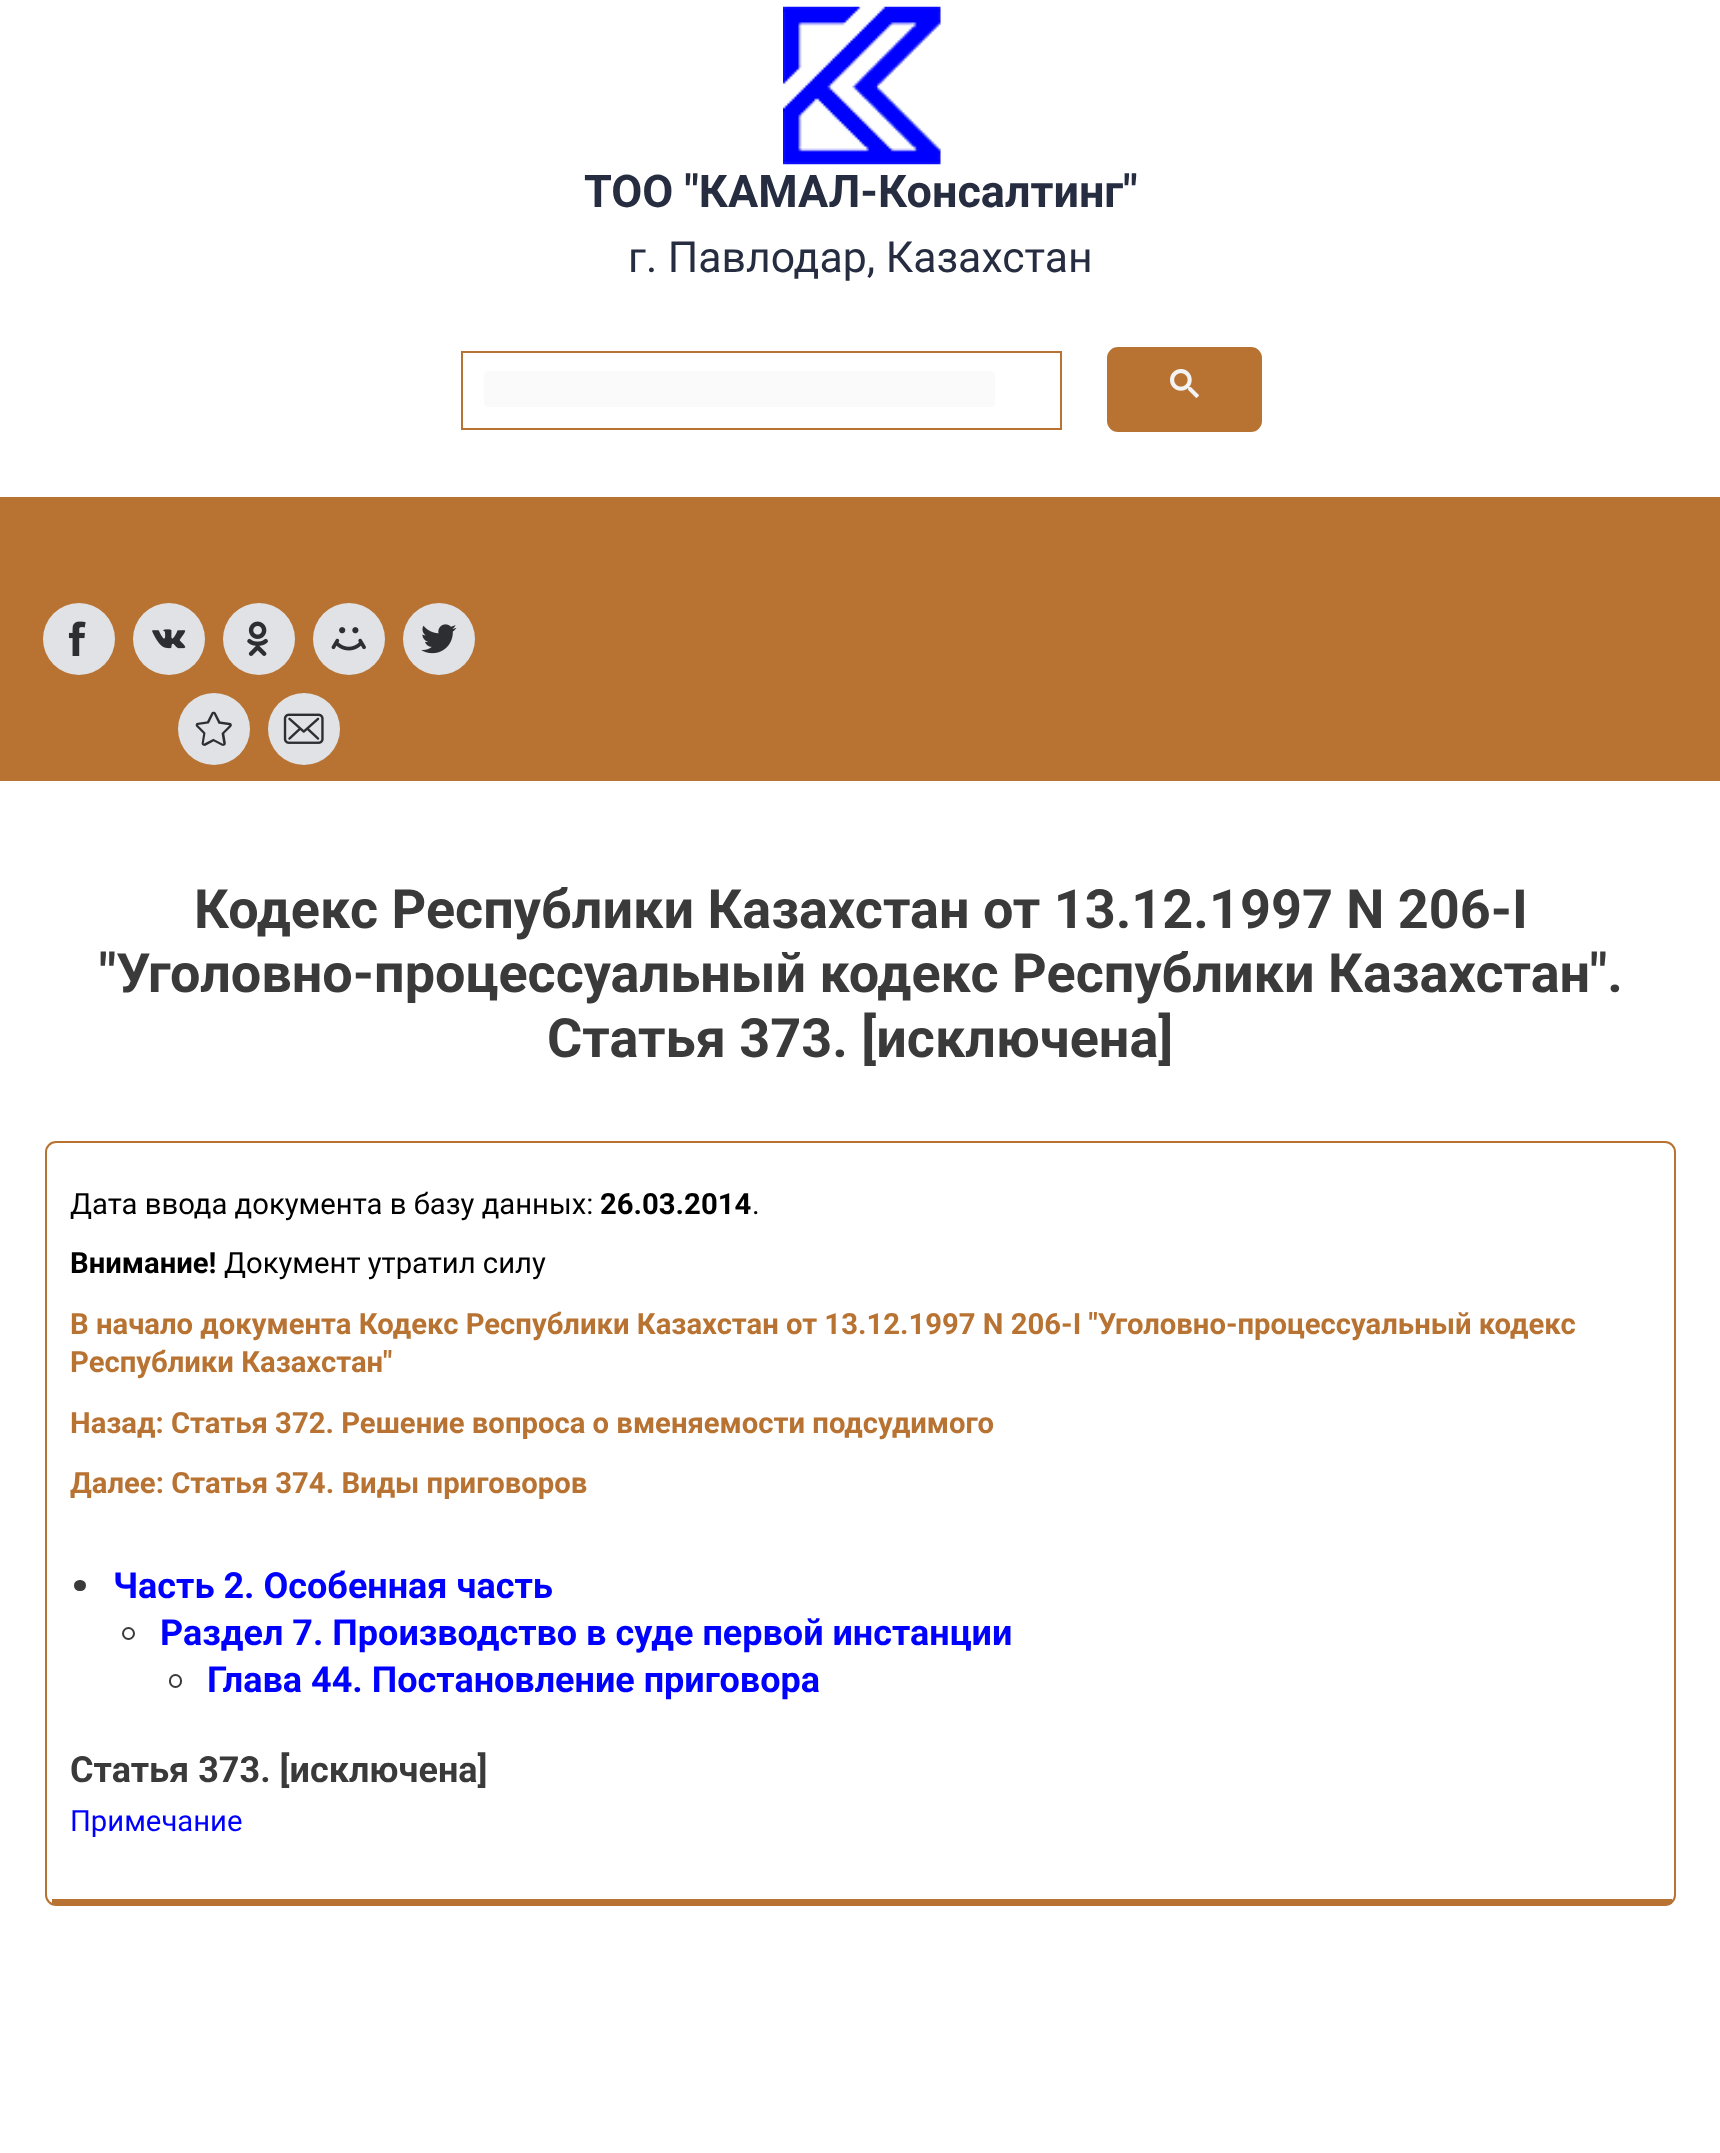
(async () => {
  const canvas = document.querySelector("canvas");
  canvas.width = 1720;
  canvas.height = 2153;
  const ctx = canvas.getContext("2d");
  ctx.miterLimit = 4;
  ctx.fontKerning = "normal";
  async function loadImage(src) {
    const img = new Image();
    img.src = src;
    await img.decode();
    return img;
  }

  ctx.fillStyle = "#ffffff";
  ctx.fillRect(0, 0, 1720, 2153);
  ctx.drawImage(await loadImage("img/1.png"), 783, 6, 158, 159);
  ctx.strokeStyle = "#b87333";
  ctx.lineWidth = 2;
  ctx.strokeRect(462, 352, 599, 77);
  ctx.fillStyle = "#fafafa";
  ctx.beginPath();
  ctx.roundRect(484, 371, 511, 36, 5);
  ctx.fill();
  ctx.fillStyle = "#b87333";
  ctx.beginPath();
  ctx.roundRect(1108, 348, 153, 83, 10);
  ctx.fill();
  ctx.stroke();
  ctx.drawImage(await loadImage("img/2.png"), 1170, 369, 29, 29);
  ctx.fillRect(0, 497, 1720, 284);
  ctx.fillStyle = "#e0e2e6";
  ctx.beginPath();
  ctx.arc(79, 639, 36, 0, Math.PI * 2);
  ctx.fill();
  ctx.drawImage(await loadImage("img/3.png"), 68, 621, 18, 35);
  ctx.beginPath();
  ctx.arc(169, 639, 36, 0, Math.PI * 2);
  ctx.fill();
  ctx.drawImage(await loadImage("img/4.png"), 152, 629, 34, 20);
  ctx.beginPath();
  ctx.arc(259, 639, 36, 0, Math.PI * 2);
  ctx.fill();
  ctx.drawImage(await loadImage("img/5.png"), 247, 621, 21, 35);
  ctx.beginPath();
  ctx.arc(349, 639, 36, 0, Math.PI * 2);
  ctx.fill();
  ctx.drawImage(await loadImage("img/6.png"), 331, 627, 35, 24);
  ctx.beginPath();
  ctx.arc(439, 639, 36, 0, Math.PI * 2);
  ctx.fill();
  ctx.drawImage(await loadImage("img/7.png"), 421, 624, 36, 30);
  ctx.beginPath();
  ctx.arc(214, 729, 36, 0, Math.PI * 2);
  ctx.fill();
  ctx.drawImage(await loadImage("img/8.png"), 195, 711, 37, 35);
  ctx.beginPath();
  ctx.arc(304, 729, 36, 0, Math.PI * 2);
  ctx.fill();
  ctx.drawImage(await loadImage("img/9.png"), 283, 713, 41, 31);
  ctx.beginPath();
  ctx.roundRect(46, 1142, 1629, 763, 10);
  ctx.stroke();
  ctx.fillStyle = "#b87333";
  ctx.fillRect(52, 1899, 1620, 5);
  ctx.fillStyle = "#3a3a3a";
  ctx.beginPath();
  ctx.roundRect(74, 1580, 12, 11, 5.5);
  ctx.fill();
  ctx.beginPath();
  ctx.arc(128.5, 1633.5, 5.5, 0, Math.PI * 2);
  ctx.strokeStyle = "#3a3a3a";
  ctx.stroke();
  ctx.beginPath();
  ctx.roundRect(170, 1675, 11, 12, 5.5);
  ctx.stroke();
  ctx.font = "bold 45px Roboto";
  ctx.fillStyle = "#262d40";
  ctx.fillText("ТОО \"КАМАЛ-Консалтинг\"", 584, 207);
  ctx.font = "42.75px Roboto";
  ctx.fillText("г. Павлодар, Казахстан", 628, 272);
  ctx.font = "bold 54px Roboto";
  ctx.fillStyle = "#3a3a3a";
  for (const [text, x, y] of [
    ["Кодекс Республики Казахстан от 13.12.1997 N 206-I", 194, 928],
    ["\"Уголовно-процессуальный кодекс Республики Казахстан\".", 99, 992],
    ["Статья 373. [исключена]", 547, 1057],
  ]) {
    ctx.fillText(text, x, y);
  }
  ctx.font = "29.25px Roboto";
  ctx.fillStyle = "#000000";
  ctx.fillText("Дата ввода документа в базу данных:", 70, 1214);
  ctx.font = "bold 29.25px Roboto";
  ctx.fillText("26.03.2014", 600, 1214);
  ctx.font = "29.25px Roboto";
  ctx.fillText(".", 752, 1214);
  ctx.font = "bold 29.25px Roboto";
  ctx.fillText("Внимание!", 70, 1273);
  ctx.font = "29.25px Roboto";
  ctx.fillText("Документ утратил силу", 224, 1273);
  ctx.font = "bold 29.25px Roboto";
  ctx.fillStyle = "#b87333";
  for (const [text, x, y] of [
    ["В начало документа Кодекс Республики Казахстан от 13.12.1997 N 206-I \"Уголовно-процессуальный кодекс", 70, 1334],
    ["Республики Казахстан\"", 70, 1372],
    ["Назад: Статья 372. Решение вопроса о вменяемости подсудимого", 70, 1433],
    ["Далее: Статья 374. Виды приговоров", 70, 1493],
  ]) {
    ctx.fillText(text, x, y);
  }
  ctx.font = "bold 36px Roboto";
  ctx.fillStyle = "#0000ff";
  for (const [text, x, y] of [
    ["Часть 2. Особенная часть", 113, 1598],
    ["Раздел 7. Производство в суде первой инстанции", 160, 1645],
    ["Глава 44. Постановление приговора", 207, 1692],
  ]) {
    ctx.fillText(text, x, y);
  }
  ctx.fillStyle = "#3a3a3a";
  ctx.fillText("Статья 373. [исключена]", 70, 1782);
  ctx.font = "29.25px Roboto";
  ctx.fillStyle = "#0000ff";
  ctx.fillText("Примечание", 70, 1831);
})();
